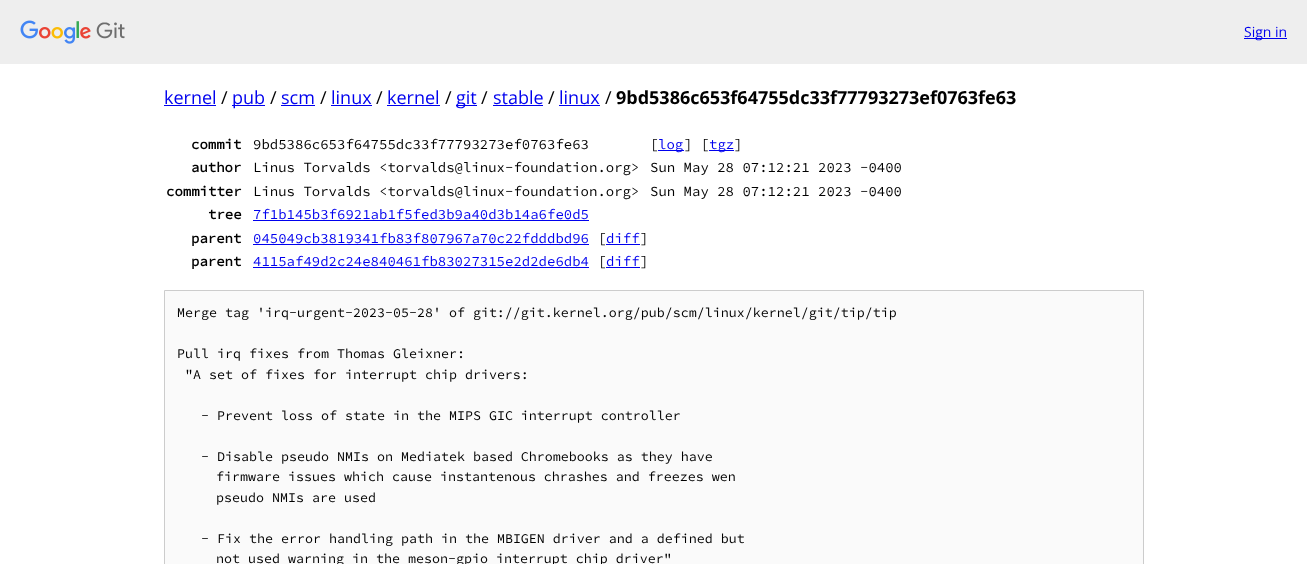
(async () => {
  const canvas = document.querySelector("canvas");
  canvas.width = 1307;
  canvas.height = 564;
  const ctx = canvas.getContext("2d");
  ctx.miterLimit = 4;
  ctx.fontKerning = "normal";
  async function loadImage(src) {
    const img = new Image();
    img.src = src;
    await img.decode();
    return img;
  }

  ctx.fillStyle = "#ffffff";
  ctx.fillRect(0, 0, 1307, 564);
  ctx.fillStyle = "#eeeeee";
  ctx.fillRect(0, 0, 1307, 64);
  ctx.drawImage(await loadImage("img/1.png"), 20, 20, 105, 24);
  for (const [x, y, w, h, color] of [
    [1244, 38, 43, 1, "#0000ee"],
    [164, 105, 52, 1, "#0000ee"],
    [232, 105, 33, 1, "#0000ee"],
    [281, 105, 34, 1, "#0000ee"],
    [331, 105, 41, 1, "#0000ee"],
    [387, 105, 53, 1, "#0000ee"],
    [456, 105, 21, 1, "#0000ee"],
    [493, 105, 50, 1, "#0000ee"],
    [559, 105, 41, 1, "#0000ee"],
    [658, 150, 26, 1, "#0000ee"],
    [709, 150, 25, 1, "#0000ee"],
    [253, 220, 336, 1, "#0000ee"],
    [253, 244, 336, 1, "#0000ee"],
    [606, 244, 34, 1, "#0000ee"],
    [253, 267, 336, 1, "#0000ee"],
    [606, 267, 34, 1, "#0000ee"],
  ]) {
    ctx.fillStyle = color;
    ctx.fillRect(x, y, w, h);
  }
  ctx.fillStyle = "#fafafa";
  ctx.beginPath();
  ctx.rect(164.5, 290.5, 979, 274);
  ctx.fill();
  ctx.strokeStyle = "#cccccc";
  ctx.stroke();
  ctx.font = "14px Open Sans";
  ctx.fillStyle = "#0000ee";
  ctx.fillText("Sign in", 1244, 37);
  ctx.font = "18px Open Sans";
  ctx.fillText("kernel", 164, 104);
  ctx.fillStyle = "#000000";
  ctx.fillText("/", 221, 104);
  ctx.fillStyle = "#0000ee";
  ctx.fillText("pub", 232, 104);
  ctx.fillStyle = "#000000";
  ctx.fillText("/", 270, 104);
  ctx.fillStyle = "#0000ee";
  ctx.fillText("scm", 281, 104);
  ctx.fillStyle = "#000000";
  ctx.fillText("/", 320, 104);
  ctx.fillStyle = "#0000ee";
  ctx.fillText("linux", 331, 104);
  ctx.fillStyle = "#000000";
  ctx.fillText("/", 376, 104);
  ctx.fillStyle = "#0000ee";
  ctx.fillText("kernel", 387, 104);
  ctx.fillStyle = "#000000";
  ctx.fillText("/", 445, 104);
  ctx.fillStyle = "#0000ee";
  ctx.fillText("git", 456, 104);
  ctx.fillStyle = "#000000";
  ctx.fillText("/", 481, 104);
  ctx.fillStyle = "#0000ee";
  ctx.fillText("stable", 493, 104);
  ctx.fillStyle = "#000000";
  ctx.fillText("/", 548, 104);
  ctx.fillStyle = "#0000ee";
  ctx.fillText("linux", 559, 104);
  ctx.fillStyle = "#000000";
  ctx.fillText("/", 605, 104);
  ctx.font = "bold 18px Open Sans";
  ctx.fillText("9bd5386c653f64755dc33f77793273ef0763fe63", 616, 104);
  ctx.font = "bold 14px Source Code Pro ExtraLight";
  ctx.fillText("commit", 191, 149);
  ctx.font = "200 14px Source Code Pro ExtraLight";
  ctx.fillText("9bd5386c653f64755dc33f77793273ef0763fe63", 253, 149);
  ctx.fillText("[", 650, 149);
  ctx.fillStyle = "#0000ee";
  ctx.fillText("log", 658, 149);
  ctx.fillStyle = "#000000";
  ctx.fillText("] [", 684, 149);
  ctx.fillStyle = "#0000ee";
  ctx.fillText("tgz", 709, 149);
  ctx.fillStyle = "#000000";
  ctx.fillText("]", 734, 149);
  ctx.font = "bold 14px Source Code Pro ExtraLight";
  ctx.fillText("author", 191, 172);
  ctx.font = "200 14px Source Code Pro ExtraLight";
  ctx.fillText("Linus Torvalds <torvalds@linux-foundation.org>", 253, 172);
  ctx.fillText("Sun May 28 07:12:21 2023 -0400", 650, 172);
  ctx.font = "bold 14px Source Code Pro ExtraLight";
  ctx.fillText("committer", 166, 196);
  ctx.font = "200 14px Source Code Pro ExtraLight";
  ctx.fillText("Linus Torvalds <torvalds@linux-foundation.org>", 253, 196);
  ctx.fillText("Sun May 28 07:12:21 2023 -0400", 650, 196);
  ctx.font = "bold 14px Source Code Pro ExtraLight";
  ctx.fillText("tree", 208, 219);
  ctx.font = "200 14px Source Code Pro ExtraLight";
  ctx.fillStyle = "#0000ee";
  ctx.fillText("7f1b145b3f6921ab1f5fed3b9a40d3b14a6fe0d5", 253, 219);
  ctx.font = "bold 14px Source Code Pro ExtraLight";
  ctx.fillStyle = "#000000";
  ctx.fillText("parent", 191, 243);
  ctx.font = "200 14px Source Code Pro ExtraLight";
  ctx.fillStyle = "#0000ee";
  ctx.fillText("045049cb3819341fb83f807967a70c22fdddbd96", 253, 243);
  ctx.fillStyle = "#000000";
  ctx.fillText("[", 598, 243);
  ctx.fillStyle = "#0000ee";
  ctx.fillText("diff", 606, 243);
  ctx.fillStyle = "#000000";
  ctx.fillText("]", 640, 243);
  ctx.font = "bold 14px Source Code Pro ExtraLight";
  ctx.fillText("parent", 191, 266);
  ctx.font = "200 14px Source Code Pro ExtraLight";
  ctx.fillStyle = "#0000ee";
  ctx.fillText("4115af49d2c24e840461fb83027315e2d2de6db4", 253, 266);
  ctx.fillStyle = "#000000";
  ctx.fillText("[", 598, 266);
  ctx.fillStyle = "#0000ee";
  ctx.fillText("diff", 606, 266);
  ctx.fillStyle = "#000000";
  ctx.fillText("]", 640, 266);
  ctx.font = "200 13.33px Source Code Pro ExtraLight";
  for (const [text, x, y] of [
    ["Merge tag 'irq-urgent-2023-05-28' of git://git.kernel.org/pub/scm/linux/kernel/git/tip/tip", 177, 317],
    ["Pull irq fixes from Thomas Gleixner:", 177, 358],
    ["\"A set of fixes for interrupt chip drivers:", 185, 379],
    ["- Prevent loss of state in the MIPS GIC interrupt controller", 201, 420],
    ["- Disable pseudo NMIs on Mediatek based Chromebooks as they have", 201, 461],
    ["firmware issues which cause instantenous chrashes and freezes wen", 216, 481],
    ["pseudo NMIs are used", 216, 502],
    ["- Fix the error handling path in the MBIGEN driver and a defined but", 201, 543],
    ["not used warning in the meson-gpio interrupt chip driver\"", 216, 563],
  ]) {
    ctx.fillText(text, x, y);
  }
})();
